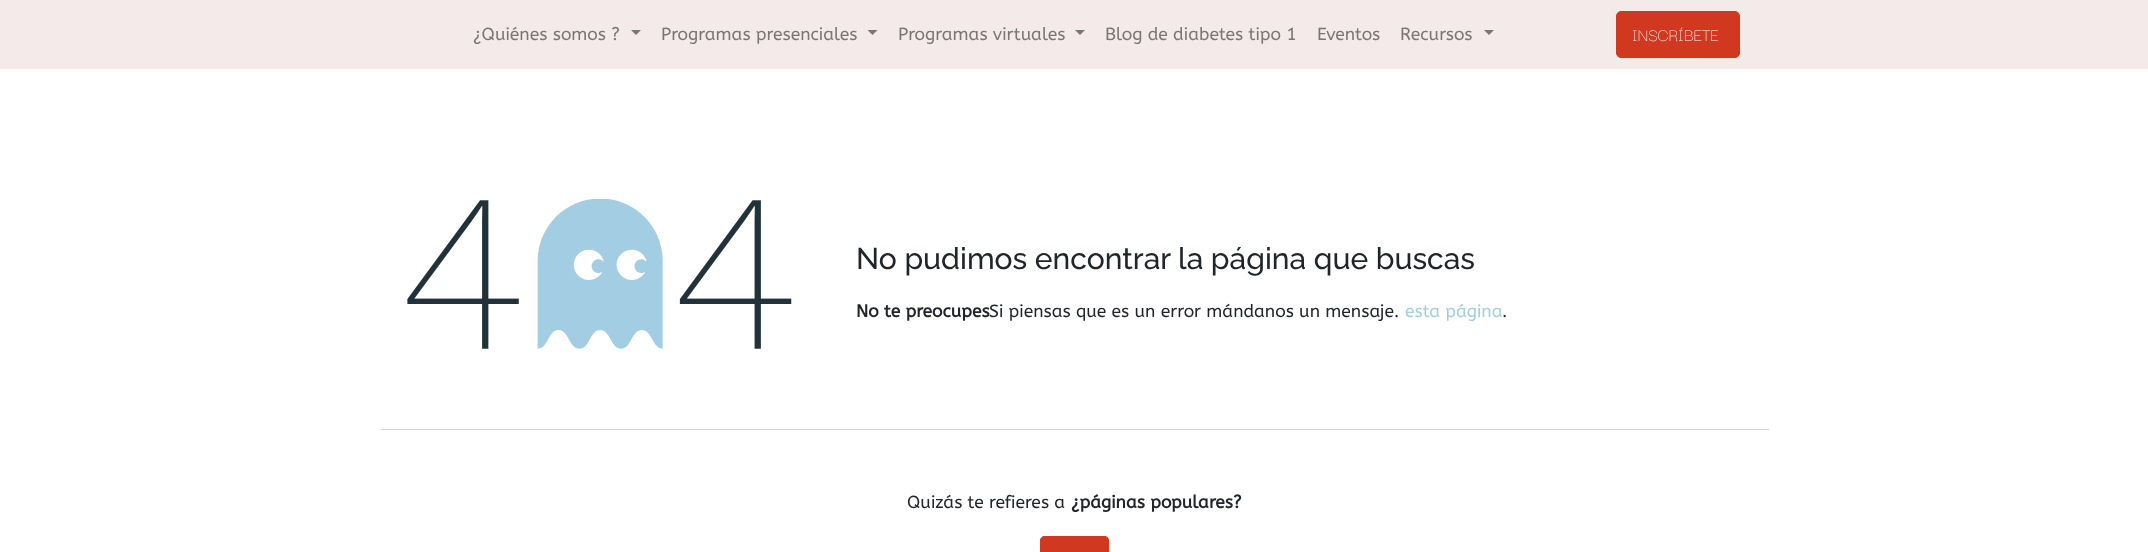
(async () => {
  const canvas = document.querySelector("canvas");
  canvas.width = 2148;
  canvas.height = 552;
  const ctx = canvas.getContext("2d");
  ctx.miterLimit = 4;
  ctx.fontKerning = "normal";
  async function loadImage(src) {
    const img = new Image();
    img.src = src;
    await img.decode();
    return img;
  }
  let path;

  ctx.fillStyle = "#ffffff";
  ctx.fillRect(0, 0, 2148, 552);
  ctx.fillStyle = "#f4eaea";
  ctx.fillRect(0, 0, 2148, 69);
  ctx.fillStyle = "#7a7575";
  path = new Path2D("M631 30H641L636 35Z");
  ctx.fill(path);
  path = new Path2D("M867.5 30H877.5L872.5 35Z");
  ctx.fill(path);
  path = new Path2D("M1075 30H1085L1080 35Z");
  ctx.fill(path);
  path = new Path2D("M1484 30H1494L1489 35Z");
  ctx.fill(path);
  ctx.fillStyle = "#d03820";
  ctx.beginPath();
  ctx.roundRect(1616.5, 11.5, 123, 46, 4.5);
  ctx.fill();
  ctx.strokeStyle = "#d03820";
  ctx.stroke();
  ctx.drawImage(await loadImage("img/1.png"), 407, 199, 385, 150);
  ctx.fillStyle = "#ced4da";
  ctx.fillRect(381, 429, 1388, 1);
  ctx.fillStyle = "#d03820";
  path = new Path2D("M1045 536H1104C1107 536 1109 538 1109 541V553H1040V541C1040 538 1042 536 1045 536Z");
  ctx.fill(path);
  ctx.beginPath();
  ctx.roundRect(1040.5, 536.5, 68, 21, 4.5);
  ctx.stroke();
  ctx.font = "17.5px ABeeZee";
  ctx.fillStyle = "#7a7575";
  for (const [text, x, y] of [
    ["¿Quiénes somos ?", 473, 40],
    ["Programas presenciales", 661, 40],
    ["Programas virtuales", 898, 40],
    ["Blog de diabetes tipo 1", 1105, 40],
    ["Eventos", 1317, 40],
    ["Recursos", 1400, 40],
  ]) {
    ctx.fillText(text, x, y);
  }
  ctx.font = "300 18.75px Darker Grotesque";
  ctx.fillStyle = "#ffffff";
  ctx.fillText("INSCRÍBETE", 1632, 41);
  ctx.font = "500 30px Raleway";
  ctx.fillStyle = "#212529";
  ctx.fillText("No pudimos encontrar la página que buscas", 856, 269);
  ctx.font = "bold 17.5px ABeeZee";
  ctx.fillText("No te preocupes", 856, 317);
  ctx.font = "17.5px ABeeZee";
  ctx.fillText("Si piensas que es un error mándanos un mensaje.", 989, 317);
  ctx.fillStyle = "#a2cde3";
  ctx.fillText("esta página", 1405, 317);
  ctx.fillStyle = "#212529";
  ctx.fillText(".", 1502, 317);
  ctx.fillText("Quizás te refieres a", 907, 508);
  ctx.font = "bold 17.5px ABeeZee";
  ctx.fillText("¿páginas populares?", 1071, 508);
})();
